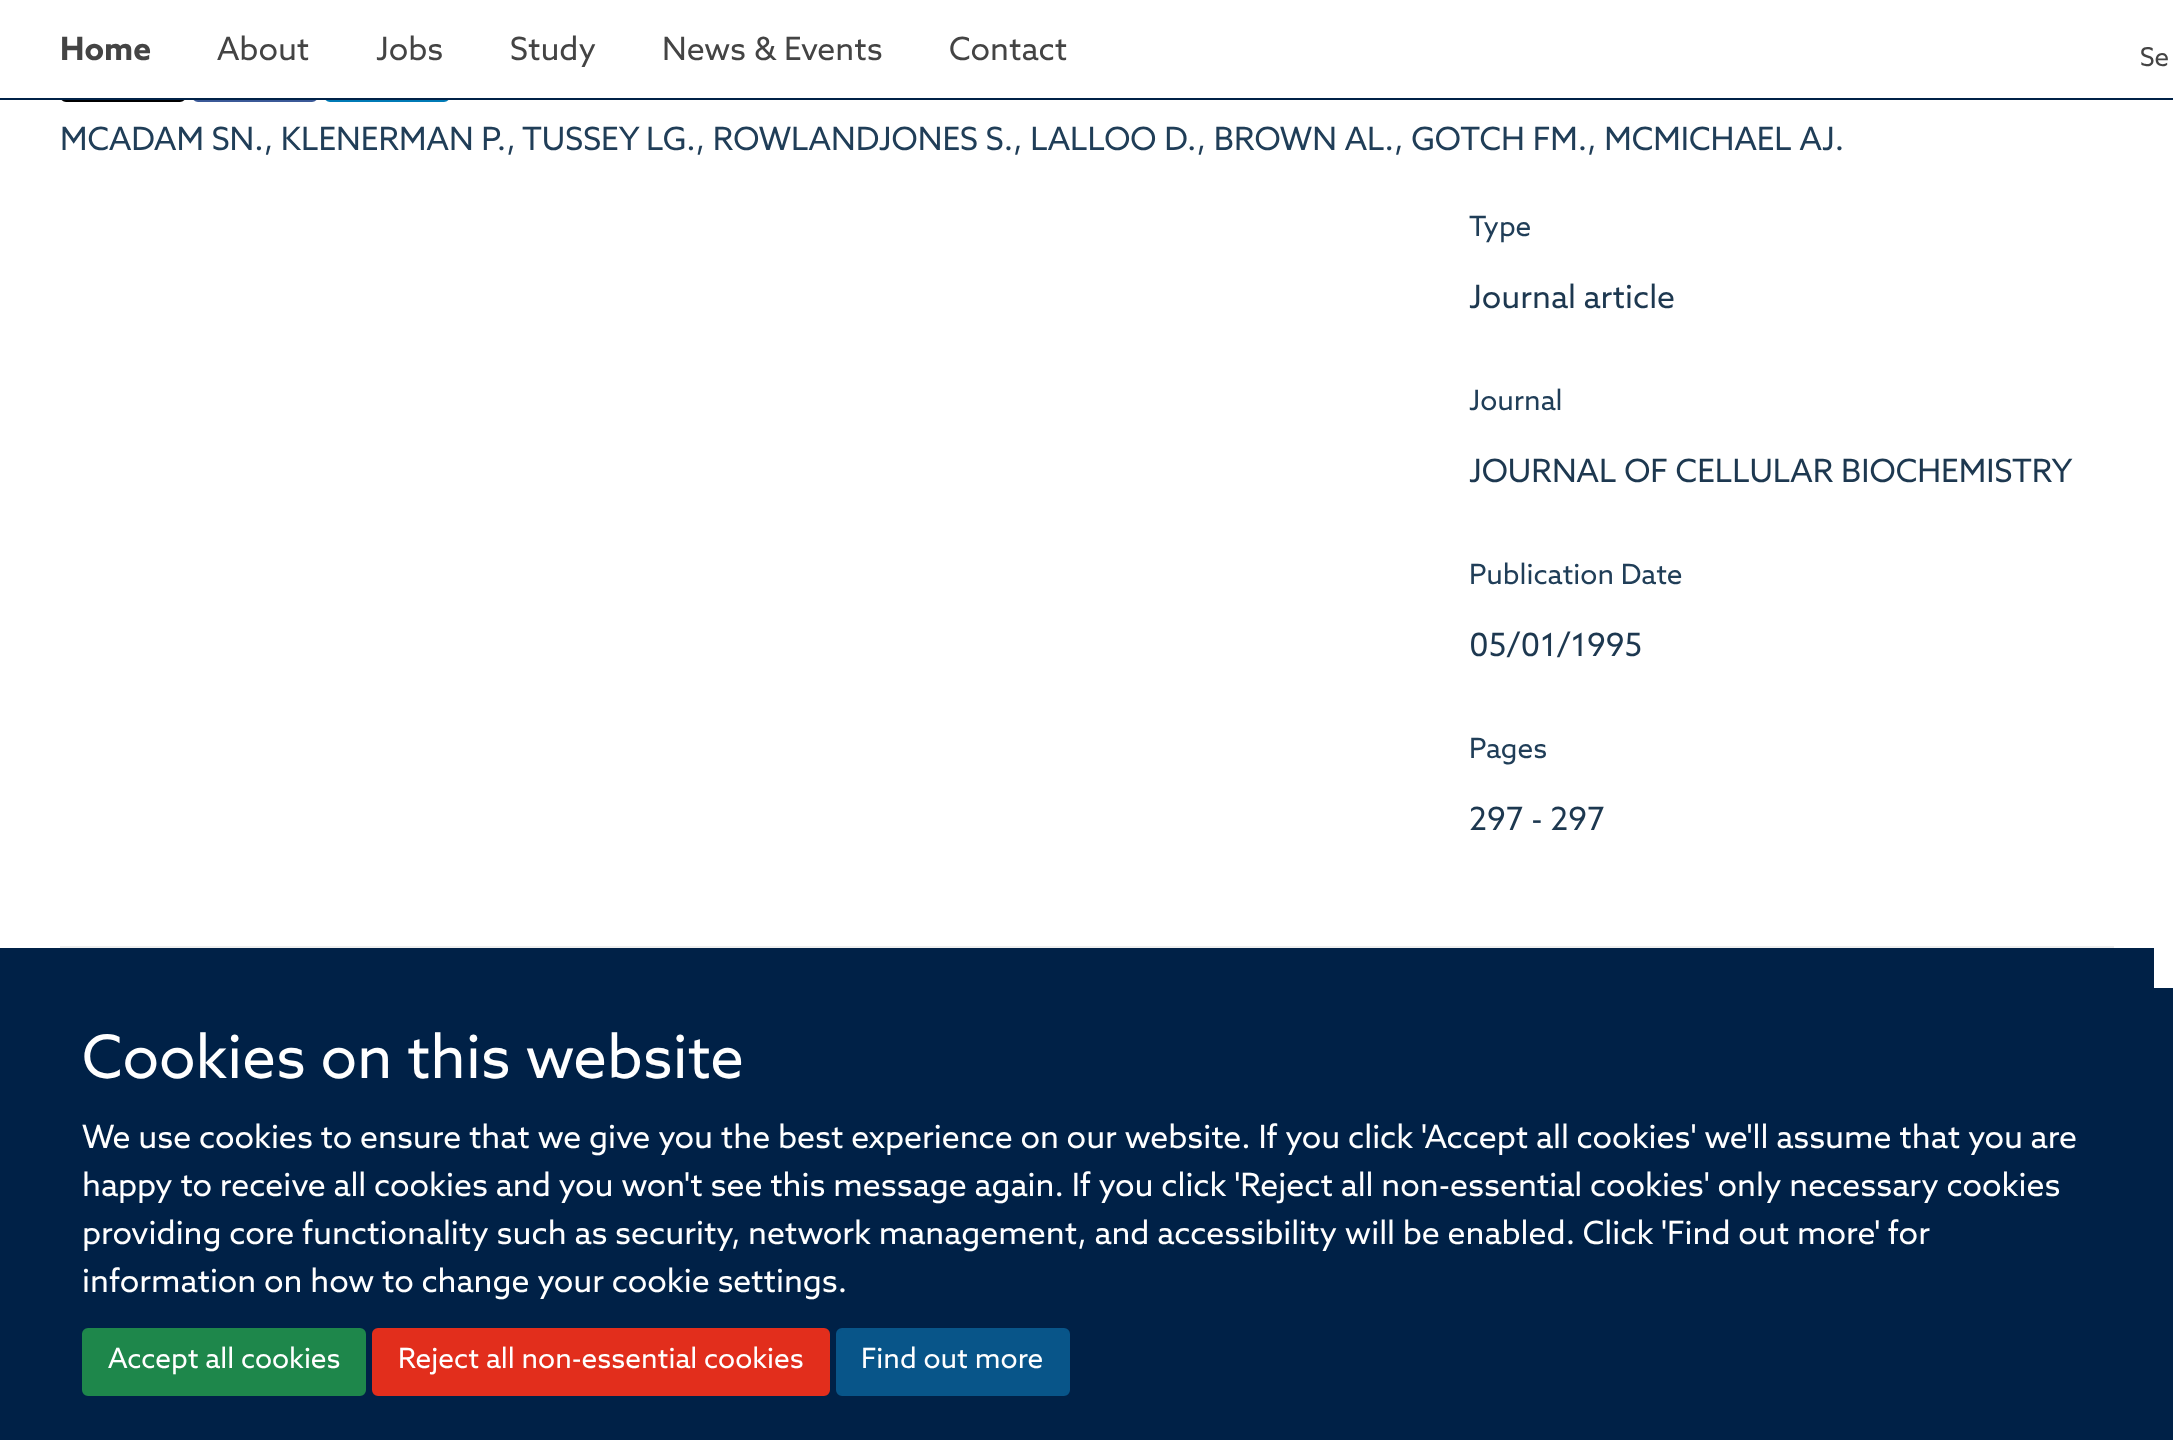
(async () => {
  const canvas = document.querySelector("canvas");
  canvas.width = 2173;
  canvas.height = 1440;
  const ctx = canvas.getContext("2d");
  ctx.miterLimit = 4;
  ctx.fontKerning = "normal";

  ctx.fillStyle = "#ffffff";
  ctx.fillRect(0, 0, 2173, 1440);
  ctx.beginPath();
  ctx.roundRect(61, 59, 124, 42, 5);
  ctx.strokeStyle = "#000000";
  ctx.lineWidth = 2;
  ctx.stroke();
  ctx.beginPath();
  ctx.roundRect(193, 59, 124, 42, 5);
  ctx.strokeStyle = "#3b5998";
  ctx.stroke();
  ctx.beginPath();
  ctx.roundRect(325, 59, 124, 42, 5);
  ctx.strokeStyle = "#007bb6";
  ctx.stroke();
  for (const [x, y, w, h, color] of [
    [60, 58, 390, 40, "#ffffff"],
    [0, 98, 2173, 2, "#002147"],
    [60, 946, 2054, 2, "#eeeeee"],
    [0, 948, 2154, 40, "#002147"],
    [0, 988, 2173, 452, "#002147"],
  ]) {
    ctx.fillStyle = color;
    ctx.fillRect(x, y, w, h);
  }
  ctx.fillStyle = "#1e874b";
  ctx.beginPath();
  ctx.roundRect(83, 1329, 282, 66, 5);
  ctx.fill();
  ctx.strokeStyle = "#1e874b";
  ctx.stroke();
  ctx.fillStyle = "#e22e1c";
  ctx.beginPath();
  ctx.roundRect(373, 1329, 456, 66, 5);
  ctx.fill();
  ctx.strokeStyle = "#e22e1c";
  ctx.stroke();
  ctx.fillStyle = "#085589";
  ctx.beginPath();
  ctx.roundRect(837, 1329, 232, 66, 5);
  ctx.fill();
  ctx.strokeStyle = "#085589";
  ctx.stroke();
  ctx.font = "bold 32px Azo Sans";
  ctx.fillStyle = "#444444";
  ctx.fillText("Home", 60, 60);
  ctx.font = "32px Azo Sans";
  for (const [text, x, y] of [
    ["About", 217, 60],
    ["Jobs", 376, 60],
    ["Study", 510, 60],
    ["News & Events", 662, 60],
    ["Contact", 949, 60],
  ]) {
    ctx.fillText(text, x, y);
  }
  ctx.font = "26px Azo Sans";
  ctx.fillText("Se", 2140, 66);
  ctx.font = "32px Azo Sans";
  ctx.fillStyle = "#203e58";
  ctx.fillText("MCADAM SN., KLENERMAN P., TUSSEY LG., ROWLANDJONES S., LALLOO D., BROWN AL., GOTCH FM., MCMICHAEL AJ.", 60, 150);
  ctx.font = "28px Azo Sans";
  ctx.fillText("Type", 1469, 236);
  ctx.font = "32px Azo Sans";
  ctx.fillStyle = "#1d3850";
  ctx.fillText("Journal article", 1469, 308);
  ctx.font = "28px Azo Sans";
  ctx.fillStyle = "#203e58";
  ctx.fillText("Journal", 1469, 410);
  ctx.font = "32px Azo Sans";
  ctx.fillStyle = "#1d3850";
  ctx.fillText("JOURNAL OF CELLULAR BIOCHEMISTRY", 1469, 482);
  ctx.font = "28px Azo Sans";
  ctx.fillStyle = "#203e58";
  ctx.fillText("Publication Date", 1469, 584);
  ctx.font = "32px Azo Sans";
  ctx.fillStyle = "#1d3850";
  ctx.fillText("05/01/1995", 1469, 656);
  ctx.font = "28px Azo Sans";
  ctx.fillStyle = "#203e58";
  ctx.fillText("Pages", 1469, 758);
  ctx.font = "32px Azo Sans";
  ctx.fillStyle = "#1d3850";
  ctx.fillText("297 - 297", 1469, 830);
  ctx.font = "60px Azo Sans";
  ctx.fillStyle = "#ffffff";
  ctx.fillText("Cookies on this website", 82, 1078);
  ctx.font = "32px Azo Sans";
  for (const [text, x, y] of [
    ["We use cookies to ensure that we give you the best experience on our website. If you click 'Accept all cookies' we'll assume that you are", 82, 1148],
    ["happy to receive all cookies and you won't see this message again. If you click 'Reject all non-essential cookies' only necessary cookies", 82, 1196],
    ["providing core functionality such as security, network management, and accessibility will be enabled. Click 'Find out more' for", 82, 1244],
    ["information on how to change your cookie settings.", 82, 1292],
  ]) {
    ctx.fillText(text, x, y);
  }
  ctx.font = "28px Azo Sans";
  for (const [text, x, y] of [
    ["Accept all cookies", 108, 1368],
    ["Reject all non-essential cookies", 398, 1368],
    ["Find out more", 861, 1368],
  ]) {
    ctx.fillText(text, x, y);
  }
})();
